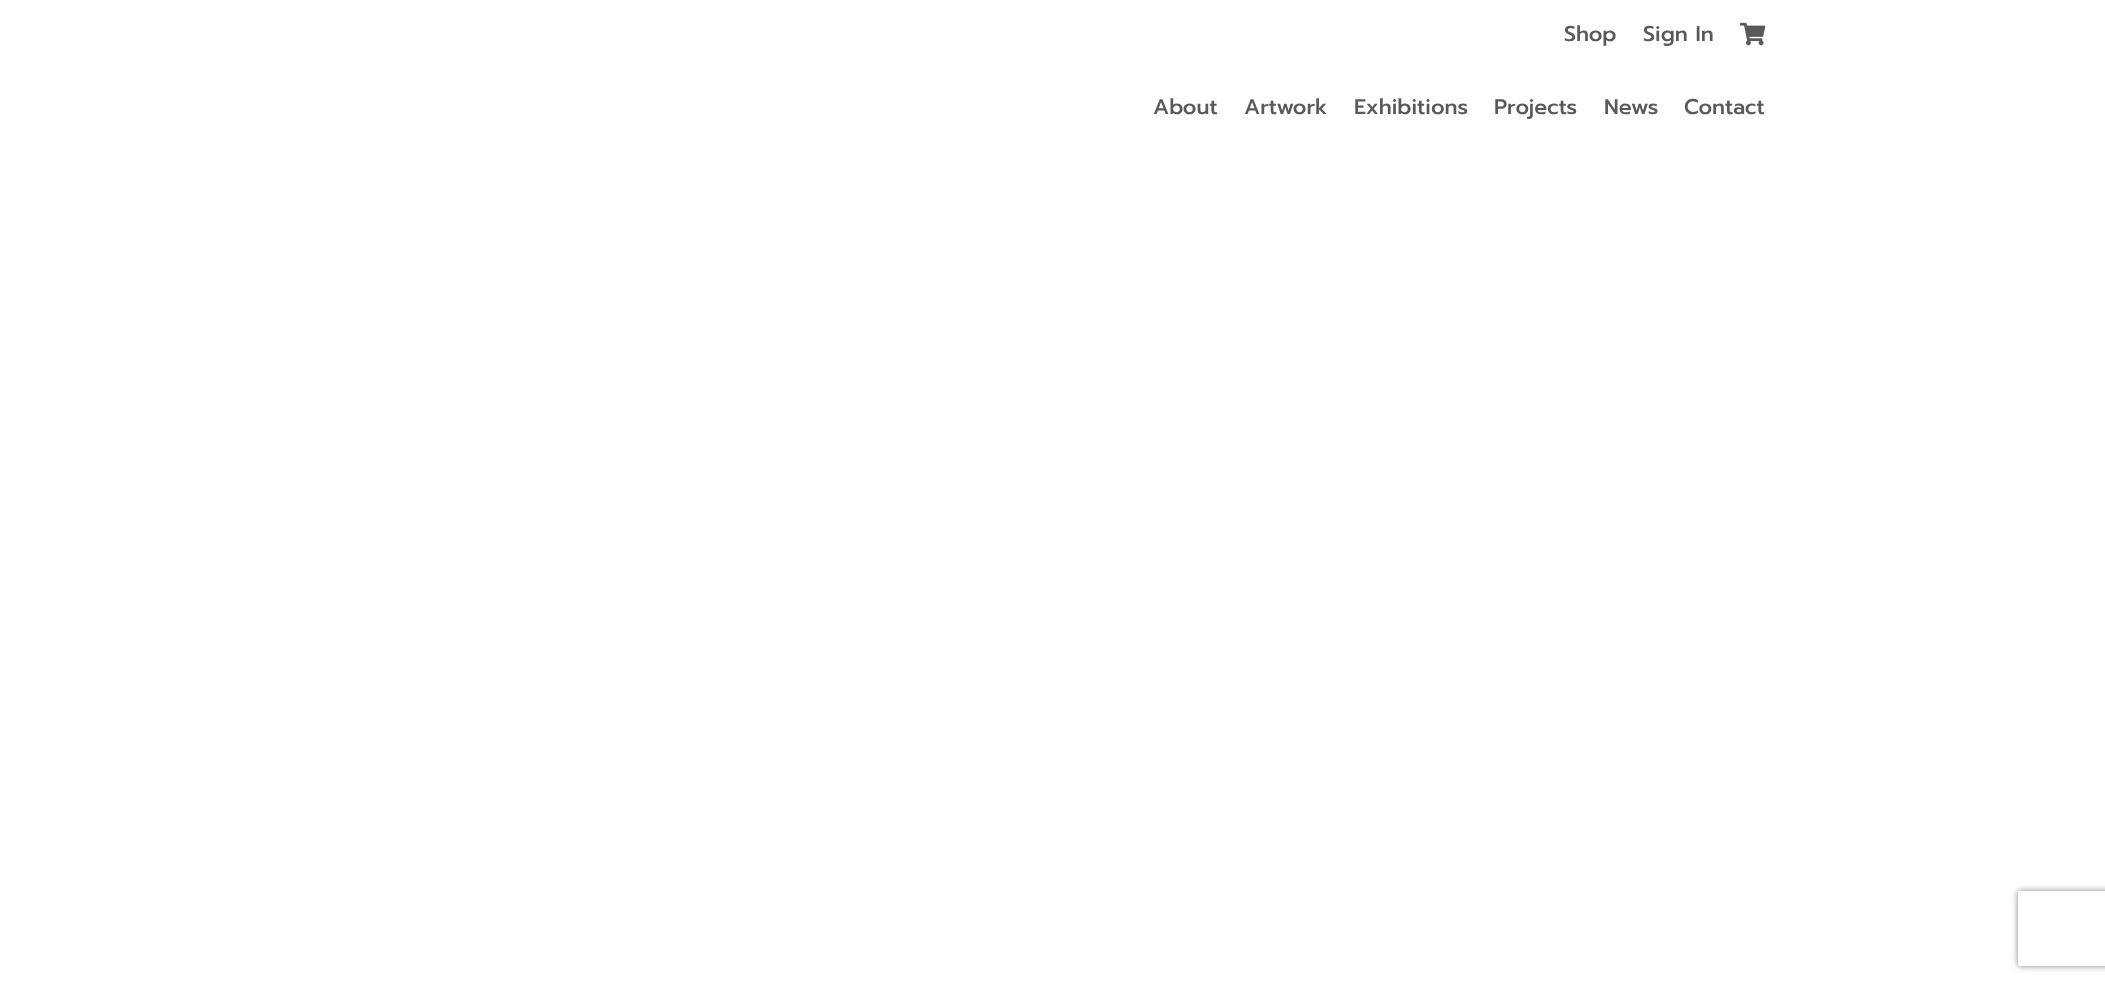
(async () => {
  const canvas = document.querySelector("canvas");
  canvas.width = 2105;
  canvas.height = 983;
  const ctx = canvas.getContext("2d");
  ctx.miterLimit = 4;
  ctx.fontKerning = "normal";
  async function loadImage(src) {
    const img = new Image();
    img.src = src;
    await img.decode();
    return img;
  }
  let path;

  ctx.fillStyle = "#ffffff";
  ctx.fillRect(0, 0, 2105, 983);
  ctx.drawImage(await loadImage("img/1.png"), 1740, 22, 26, 24);
  ctx.save();
  path = new Path2D("M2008 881H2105V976H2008ZM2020.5 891H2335.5C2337 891 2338 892 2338 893.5V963.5C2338 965 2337 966 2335.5 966H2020.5C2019 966 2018 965 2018 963.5V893.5C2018 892 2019 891 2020.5 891Z");
  ctx.clip(path, "evenodd");
  ctx.fillStyle = "#808080";
  ctx.filter = "blur(3px)";
  ctx.beginPath();
  ctx.roundRect(2018, 891, 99, 75, 2.5);
  ctx.fill();
  ctx.filter = "none";
  ctx.restore();
  ctx.font = "500 21.25px Prompt";
  ctx.fillStyle = "#595959";
  for (const [text, x, y] of [
    ["Shop", 1564, 41],
    ["Sign In", 1643, 41],
    ["About", 1153, 114],
    ["Artwork", 1244, 114],
    ["Exhibitions", 1354, 114],
    ["Projects", 1494, 114],
    ["News", 1604, 114],
    ["Contact", 1684, 114],
  ]) {
    ctx.fillText(text, x, y);
  }
})();
